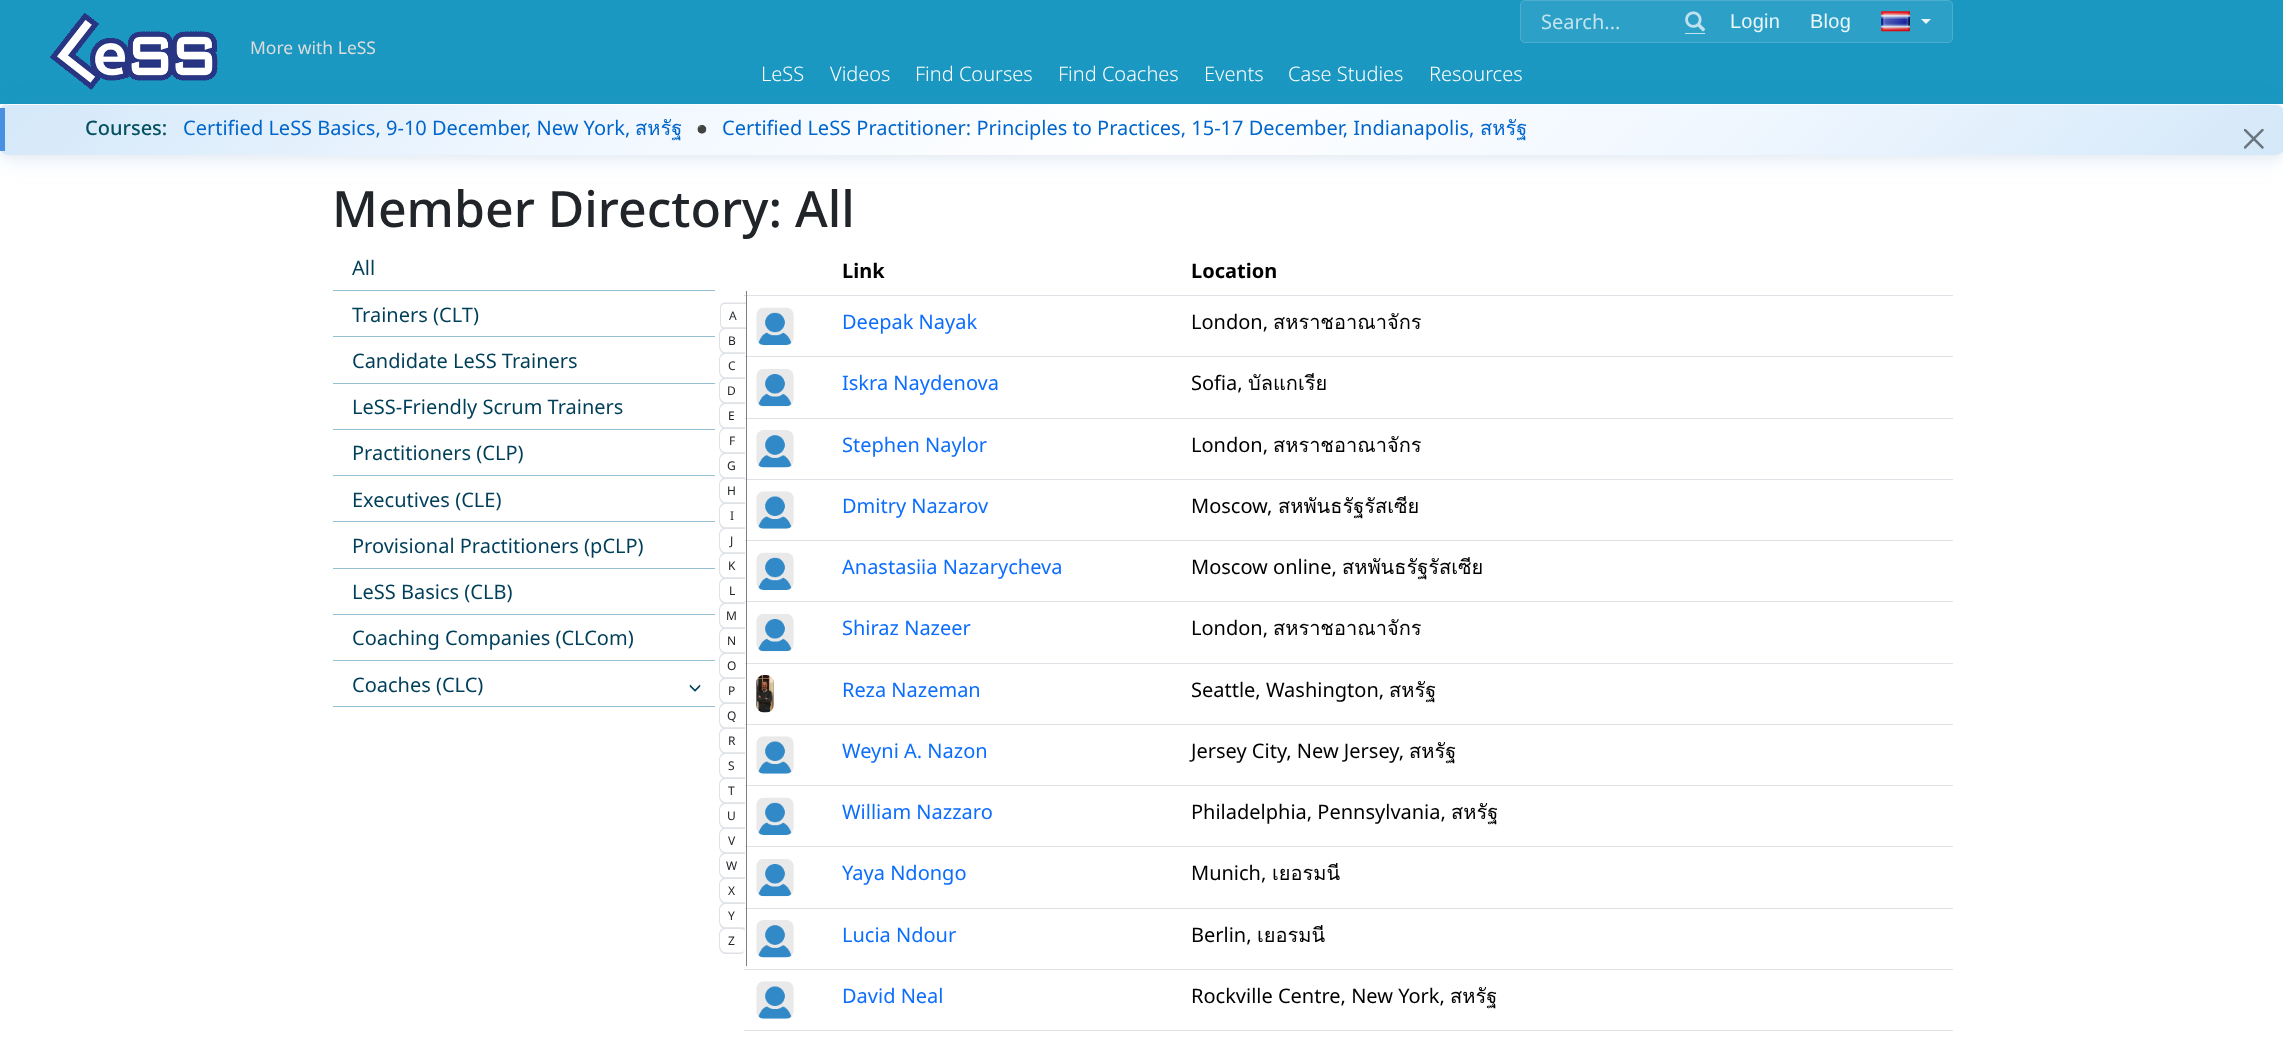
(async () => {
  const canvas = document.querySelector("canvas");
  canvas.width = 2283;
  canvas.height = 1038;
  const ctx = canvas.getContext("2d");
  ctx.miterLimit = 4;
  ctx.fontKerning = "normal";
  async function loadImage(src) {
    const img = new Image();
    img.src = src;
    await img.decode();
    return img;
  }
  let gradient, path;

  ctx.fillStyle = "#ffffff";
  ctx.fillRect(0, 0, 2283, 1038);
  ctx.fillStyle = "#1a98c1";
  ctx.fillRect(0, 0, 2283, 104);
  ctx.fillStyle = "rgba(74, 144, 226, 0.12)";
  ctx.filter = "blur(12.5px)";
  ctx.beginPath();
  ctx.roundRect(0, 109, 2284, 51, 8);
  ctx.fill();
  ctx.filter = "none";
  ctx.drawImage(await loadImage("img/1.png"), 50, 13, 168, 77);
  ctx.fillStyle = "#2ca0c6";
  ctx.beginPath();
  ctx.roundRect(1520, 0, 433, 43, 5);
  ctx.fill();
  ctx.beginPath();
  ctx.roundRect(1520.5, 0.5, 432, 42, 4.5);
  ctx.strokeStyle = "rgba(255, 255, 255, 0.15)";
  ctx.stroke();
  ctx.drawImage(await loadImage("img/2.png"), 1685, 11, 21, 21);
  ctx.fillStyle = "#c0e3ee";
  ctx.fillRect(1685, 33, 20, 1);
  ctx.drawImage(await loadImage("img/3.png"), 1881, 11, 29, 21);
  ctx.fillStyle = "#eaf6f9";
  path = new Path2D("M1921 19H1931L1926 24Z");
  ctx.fill(path);
  ctx.fillStyle = "rgba(0, 0, 0, 0.04)";
  ctx.filter = "blur(5px)";
  ctx.beginPath();
  ctx.roundRect(0, 106, 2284, 52, 8);
  ctx.fill();
  ctx.filter = "none";
  ctx.save();
  ctx.beginPath();
  ctx.roundRect(0, 104, 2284, 51, 8);
  ctx.clip();
  gradient = ctx.createLinearGradient(-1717, -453, -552, 712);
  gradient.addColorStop(0, "#d4e8f9");
  gradient.addColorStop(0.25, "#f0f7ff");
  gradient.addColorStop(0.5, "#ffffff");
  gradient.addColorStop(0.75, "#f0f7ff");
  gradient.addColorStop(1, "#d4e8f9");
  ctx.fillStyle = gradient;
  ctx.fillRect(1, 104, 4, 51);
  gradient = ctx.createLinearGradient(562, -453, 1727, 712);
  gradient.addColorStop(0, "#d4e8f9");
  gradient.addColorStop(0.25, "#f0f7ff");
  gradient.addColorStop(0.5, "#ffffff");
  gradient.addColorStop(0.75, "#f0f7ff");
  gradient.addColorStop(1, "#d4e8f9");
  ctx.fillStyle = gradient;
  path = new Path2D("M5 104H2276C2280.5 104 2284 107.5 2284 112V147C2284 151.5 2280.5 155 2276 155H5Z");
  ctx.fill(path);
  ctx.restore();
  ctx.fillStyle = "rgba(255, 255, 255, 0.8)";
  path = new Path2D("M8 105H2276C2279 105 2283 107 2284 110C2283 106 2280 104 2276 104H8C6 104 5 107 5 111V112C5 108 6 105 8 105Z");
  ctx.fill(path);
  ctx.fillStyle = "#4a90e2";
  ctx.fillRect(0, 108, 5, 43);
  ctx.drawImage(await loadImage("img/4.png"), 2244, 129, 20, 20);
  for (const [x, y, w, h, color] of [
    [333, 290, 382, 1, "#94c0d2"],
    [333, 336, 382, 1, "#94c0d2"],
    [333, 383, 382, 1, "#94c0d2"],
    [333, 429, 382, 1, "#94c0d2"],
    [333, 475, 382, 1, "#94c0d2"],
    [333, 521, 382, 1, "#94c0d2"],
    [333, 568, 382, 1, "#94c0d2"],
    [333, 614, 382, 1, "#94c0d2"],
    [333, 660, 382, 1, "#94c0d2"],
    [333, 706, 382, 1, "#94c0d2"],
  ]) {
    ctx.fillStyle = color;
    ctx.fillRect(x, y, w, h);
  }
  ctx.drawImage(await loadImage("img/5.png"), 689, 684, 12, 8);
  for (const [x, y, w, h, color] of [
    [744, 295, 1209, 1, "#dee2e6"],
    [744, 356, 1209, 1, "#dee2e6"],
    [744, 418, 1209, 1, "#dee2e6"],
    [744, 479, 1209, 1, "#dee2e6"],
    [744, 540, 1209, 1, "#dee2e6"],
    [744, 601, 1209, 1, "#dee2e6"],
    [744, 663, 1209, 1, "#dee2e6"],
    [744, 724, 1209, 1, "#dee2e6"],
    [744, 785, 1209, 1, "#dee2e6"],
    [744, 846, 1209, 1, "#dee2e6"],
    [744, 908, 1209, 1, "#dee2e6"],
    [746, 291, 1, 675, "#808080"],
  ]) {
    ctx.fillStyle = color;
    ctx.fillRect(x, y, w, h);
  }
  ctx.fillStyle = "#dee2e6";
  path = new Path2D("M725 302.5H746V329H725C722 329 720 326.5 720 324V307.5C720 304.5 722 302.5 725 302.5ZM725 304H746V327.5H725C723 327.5 721 326 721 324V307.5C721 305.5 723 304 725 304Z");
  ctx.fill(path, "evenodd");
  ctx.fillStyle = "#ffffff";
  ctx.beginPath();
  ctx.roundRect(719, 328, 26, 26, [8, 0, 0, 8]);
  ctx.fill();
  ctx.fillStyle = "#dee2e6";
  path = new Path2D("M726 327.5H745V354H726C722 354 719 350.5 719 346V335C719 331 722 327.5 726 327.5ZM726 329H745V352.5H726C723 352.5 720 349.5 720 346V335C720 331.5 723 329 726 329Z");
  ctx.fill(path, "evenodd");
  ctx.fillStyle = "#ffffff";
  ctx.beginPath();
  ctx.roundRect(719, 353, 26, 26, [8, 0, 0, 8]);
  ctx.fill();
  ctx.fillStyle = "#dee2e6";
  path = new Path2D("M726 352.5H745V379H726C722 379 719 375.5 719 371V360C719 356 722 352.5 726 352.5ZM726 354H745V377.5H726C723 377.5 720 374.5 720 371V360C720 356.5 723 354 726 354Z");
  ctx.fill(path, "evenodd");
  ctx.fillStyle = "#ffffff";
  ctx.beginPath();
  ctx.roundRect(719, 378, 26, 26, [8, 0, 0, 8]);
  ctx.fill();
  ctx.fillStyle = "#dee2e6";
  path = new Path2D("M726 377.5H745V404H726C722 404 719 400.5 719 396V385C719 381 722 377.5 726 377.5ZM726 379H745V402.5H726C723 402.5 720 399.5 720 396V385C720 381.5 723 379 726 379Z");
  ctx.fill(path, "evenodd");
  ctx.fillStyle = "#ffffff";
  ctx.beginPath();
  ctx.roundRect(719, 403, 26, 26, [8, 0, 0, 8]);
  ctx.fill();
  ctx.fillStyle = "#dee2e6";
  path = new Path2D("M726 402.5H745V429H726C722 429 719 425.5 719 421V410C719 406 722 402.5 726 402.5ZM726 404H745V427.5H726C723 427.5 720 424.5 720 421V410C720 406.5 723 404 726 404Z");
  ctx.fill(path, "evenodd");
  ctx.fillStyle = "#ffffff";
  ctx.beginPath();
  ctx.roundRect(719, 428, 26, 26, [8, 0, 0, 8]);
  ctx.fill();
  ctx.fillStyle = "#dee2e6";
  path = new Path2D("M726 427.5H745V454H726C722 454 719 450.5 719 446V435C719 431 722 427.5 726 427.5ZM726 429H745V452.5H726C723 452.5 720 449.5 720 446V435C720 431.5 723 429 726 429Z");
  ctx.fill(path, "evenodd");
  ctx.fillStyle = "#ffffff";
  ctx.beginPath();
  ctx.roundRect(719, 453, 26, 26, [8, 0, 0, 8]);
  ctx.fill();
  ctx.fillStyle = "#dee2e6";
  path = new Path2D("M726 452.5H745V479H726C722 479 719 475.5 719 471V460C719 456 722 452.5 726 452.5ZM726 454H745V477.5H726C723 477.5 720 474.5 720 471V460C720 456.5 723 454 726 454Z");
  ctx.fill(path, "evenodd");
  ctx.fillStyle = "#ffffff";
  ctx.beginPath();
  ctx.roundRect(719, 478, 26, 26, [8, 0, 0, 8]);
  ctx.fill();
  ctx.fillStyle = "#dee2e6";
  path = new Path2D("M726 477.5H745V504H726C722 504 719 500.5 719 496V485C719 481 722 477.5 726 477.5ZM726 479H745V502.5H726C723 502.5 720 499.5 720 496V485C720 481.5 723 479 726 479Z");
  ctx.fill(path, "evenodd");
  ctx.fillStyle = "#ffffff";
  ctx.beginPath();
  ctx.roundRect(719, 503, 26, 26, [8, 0, 0, 8]);
  ctx.fill();
  ctx.fillStyle = "#dee2e6";
  path = new Path2D("M726 502.5H745V529H726C722 529 719 525.5 719 521V510C719 506 722 502.5 726 502.5ZM726 504H745V527.5H726C723 527.5 720 524.5 720 521V510C720 506.5 723 504 726 504Z");
  ctx.fill(path, "evenodd");
  ctx.fillStyle = "#ffffff";
  ctx.beginPath();
  ctx.roundRect(719, 528, 26, 26, [8, 0, 0, 8]);
  ctx.fill();
  ctx.fillStyle = "#dee2e6";
  path = new Path2D("M726 527.5H745V554H726C722 554 719 550.5 719 546V535C719 531 722 527.5 726 527.5ZM726 529H745V552.5H726C723 552.5 720 549.5 720 546V535C720 531.5 723 529 726 529Z");
  ctx.fill(path, "evenodd");
  ctx.fillStyle = "#ffffff";
  ctx.beginPath();
  ctx.roundRect(719, 553, 26, 26, [8, 0, 0, 8]);
  ctx.fill();
  ctx.fillStyle = "#dee2e6";
  path = new Path2D("M726 552.5H745V579H726C722 579 719 575.5 719 571V560C719 556 722 552.5 726 552.5ZM726 554H745V577.5H726C723 577.5 720 574.5 720 571V560C720 556.5 723 554 726 554Z");
  ctx.fill(path, "evenodd");
  ctx.fillStyle = "#ffffff";
  ctx.beginPath();
  ctx.roundRect(719, 578, 26, 26, [8, 0, 0, 8]);
  ctx.fill();
  ctx.fillStyle = "#dee2e6";
  path = new Path2D("M726 577.5H745V604H726C722 604 719 600.5 719 596V585C719 581 722 577.5 726 577.5ZM726 579H745V602.5H726C723 602.5 720 599.5 720 596V585C720 581.5 723 579 726 579Z");
  ctx.fill(path, "evenodd");
  ctx.fillStyle = "#ffffff";
  ctx.beginPath();
  ctx.roundRect(719, 603, 26, 26, [8, 0, 0, 8]);
  ctx.fill();
  ctx.fillStyle = "#dee2e6";
  path = new Path2D("M726 602.5H745V629H726C722 629 719 625.5 719 621V610C719 606 722 602.5 726 602.5ZM726 604H745V627.5H726C723 627.5 720 624.5 720 621V610C720 606.5 723 604 726 604Z");
  ctx.fill(path, "evenodd");
  ctx.fillStyle = "#ffffff";
  ctx.beginPath();
  ctx.roundRect(719, 628, 26, 26, [8, 0, 0, 8]);
  ctx.fill();
  ctx.fillStyle = "#dee2e6";
  path = new Path2D("M726 627.5H745V654H726C722 654 719 650.5 719 646V635C719 631 722 627.5 726 627.5ZM726 629H745V652.5H726C723 652.5 720 649.5 720 646V635C720 631.5 723 629 726 629Z");
  ctx.fill(path, "evenodd");
  ctx.fillStyle = "#ffffff";
  ctx.beginPath();
  ctx.roundRect(719, 653, 26, 26, [8, 0, 0, 8]);
  ctx.fill();
  ctx.fillStyle = "#dee2e6";
  path = new Path2D("M726 652.5H745V679H726C722 679 719 675.5 719 671V660C719 656 722 652.5 726 652.5ZM726 654H745V677.5H726C723 677.5 720 674.5 720 671V660C720 656.5 723 654 726 654Z");
  ctx.fill(path, "evenodd");
  ctx.fillStyle = "#ffffff";
  ctx.beginPath();
  ctx.roundRect(719, 678, 26, 26, [8, 0, 0, 8]);
  ctx.fill();
  ctx.fillStyle = "#dee2e6";
  path = new Path2D("M726 677.5H745V704H726C722 704 719 700.5 719 696V685C719 681 722 677.5 726 677.5ZM726 679H745V702.5H726C723 702.5 720 699.5 720 696V685C720 681.5 723 679 726 679Z");
  ctx.fill(path, "evenodd");
  ctx.fillStyle = "#ffffff";
  ctx.beginPath();
  ctx.roundRect(719, 703, 26, 26, [8, 0, 0, 8]);
  ctx.fill();
  ctx.fillStyle = "#dee2e6";
  path = new Path2D("M726 702.5H745V729H726C722 729 719 725.5 719 721V710C719 706 722 702.5 726 702.5ZM726 704H745V727.5H726C723 727.5 720 724.5 720 721V710C720 706.5 723 704 726 704Z");
  ctx.fill(path, "evenodd");
  ctx.fillStyle = "#ffffff";
  ctx.beginPath();
  ctx.roundRect(719, 728, 26, 26, [8, 0, 0, 8]);
  ctx.fill();
  ctx.fillStyle = "#dee2e6";
  path = new Path2D("M726 727.5H745V754H726C722 754 719 750.5 719 746V735C719 731 722 727.5 726 727.5ZM726 729H745V752.5H726C723 752.5 720 749.5 720 746V735C720 731.5 723 729 726 729Z");
  ctx.fill(path, "evenodd");
  ctx.fillStyle = "#ffffff";
  ctx.beginPath();
  ctx.roundRect(719, 753, 26, 26, [8, 0, 0, 8]);
  ctx.fill();
  ctx.fillStyle = "#dee2e6";
  path = new Path2D("M726 752.5H745V779H726C722 779 719 775.5 719 771V760C719 756 722 752.5 726 752.5ZM726 754H745V777.5H726C723 777.5 720 774.5 720 771V760C720 756.5 723 754 726 754Z");
  ctx.fill(path, "evenodd");
  ctx.fillStyle = "#ffffff";
  ctx.beginPath();
  ctx.roundRect(719, 778, 26, 26, [8, 0, 0, 8]);
  ctx.fill();
  ctx.fillStyle = "#dee2e6";
  path = new Path2D("M726 777.5H745V804H726C722 804 719 800.5 719 796V785C719 781 722 777.5 726 777.5ZM726 779H745V802.5H726C723 802.5 720 799.5 720 796V785C720 781.5 723 779 726 779Z");
  ctx.fill(path, "evenodd");
  ctx.fillStyle = "#ffffff";
  ctx.beginPath();
  ctx.roundRect(719, 803, 26, 26, [8, 0, 0, 8]);
  ctx.fill();
  ctx.fillStyle = "#dee2e6";
  path = new Path2D("M726 802.5H745V829H726C722 829 719 825.5 719 821V810C719 806 722 802.5 726 802.5ZM726 804H745V827.5H726C723 827.5 720 824.5 720 821V810C720 806.5 723 804 726 804Z");
  ctx.fill(path, "evenodd");
  ctx.fillStyle = "#ffffff";
  ctx.beginPath();
  ctx.roundRect(719, 828, 26, 26, [8, 0, 0, 8]);
  ctx.fill();
  ctx.fillStyle = "#dee2e6";
  path = new Path2D("M726 827.5H745V854H726C722 854 719 850.5 719 846V835C719 831 722 827.5 726 827.5ZM726 829H745V852.5H726C723 852.5 720 849.5 720 846V835C720 831.5 723 829 726 829Z");
  ctx.fill(path, "evenodd");
  ctx.fillStyle = "#ffffff";
  ctx.beginPath();
  ctx.roundRect(719, 853, 26, 26, [8, 0, 0, 8]);
  ctx.fill();
  ctx.fillStyle = "#dee2e6";
  path = new Path2D("M726 852.5H745V879H726C722 879 719 875.5 719 871V860C719 856 722 852.5 726 852.5ZM726 854H745V877.5H726C723 877.5 720 874.5 720 871V860C720 856.5 723 854 726 854Z");
  ctx.fill(path, "evenodd");
  ctx.fillStyle = "#ffffff";
  ctx.beginPath();
  ctx.roundRect(719, 878, 26, 26, [8, 0, 0, 8]);
  ctx.fill();
  ctx.fillStyle = "#dee2e6";
  path = new Path2D("M726 877.5H745V904H726C722 904 719 900.5 719 896V885C719 881 722 877.5 726 877.5ZM726 879H745V902.5H726C723 902.5 720 899.5 720 896V885C720 881.5 723 879 726 879Z");
  ctx.fill(path, "evenodd");
  ctx.fillStyle = "#ffffff";
  ctx.beginPath();
  ctx.roundRect(719, 903, 26, 26, [8, 0, 0, 8]);
  ctx.fill();
  ctx.fillStyle = "#dee2e6";
  path = new Path2D("M726 902.5H745V929H726C722 929 719 925.5 719 921V910C719 906 722 902.5 726 902.5ZM726 904H745V927.5H726C723 927.5 720 924.5 720 921V910C720 906.5 723 904 726 904Z");
  ctx.fill(path, "evenodd");
  ctx.fillStyle = "#ffffff";
  ctx.beginPath();
  ctx.roundRect(719, 928, 26, 26, [8, 5, 5, 8]);
  ctx.fill();
  ctx.fillStyle = "#dee2e6";
  path = new Path2D("M726 927.5H740C743 927.5 745 929.5 745 932.5V949C745 951.5 743 954 740 954H726C722 954 719 950.5 719 946V935C719 931 722 927.5 726 927.5ZM726 929H740C743 929 745 930.5 745 932.5V949C745 951 743 952.5 740 952.5H726C723 952.5 720 949.5 720 946V935C720 931.5 723 929 726 929Z");
  ctx.fill(path, "evenodd");
  ctx.drawImage(await loadImage("img/6.png"), 756, 307, 38, 38);
  ctx.drawImage(await loadImage("img/7.png"), 756, 369, 38, 38);
  ctx.drawImage(await loadImage("img/8.png"), 756, 430, 38, 38);
  ctx.drawImage(await loadImage("img/9.png"), 756, 491, 38, 38);
  ctx.drawImage(await loadImage("img/6.png"), 756, 552, 38, 38);
  ctx.drawImage(await loadImage("img/7.png"), 756, 614, 38, 38);
  ctx.drawImage(await loadImage("img/10.png"), 756, 675, 18, 38);
  ctx.drawImage(await loadImage("img/9.png"), 756, 736, 38, 38);
  ctx.drawImage(await loadImage("img/6.png"), 756, 797, 38, 38);
  ctx.drawImage(await loadImage("img/7.png"), 756, 859, 38, 38);
  ctx.drawImage(await loadImage("img/8.png"), 756, 920, 38, 38);
  ctx.fillRect(744, 969, 1209, 1);
  ctx.drawImage(await loadImage("img/11.png"), 756, 981, 38, 38);
  ctx.fillRect(744, 1030, 1209, 1);
  ctx.font = "20px Noto Sans";
  ctx.fillStyle = "#c0e3ee";
  ctx.fillText("Search...", 1541, 29);
  ctx.letterSpacing = "0.25px";
  ctx.font = "20px Liberation Sans";
  ctx.fillStyle = "#eaf6f9";
  ctx.fillText("Login", 1730, 28);
  ctx.fillText("Blog", 1810, 28);
  ctx.letterSpacing = "0px";
  ctx.font = "17.5px Noto Sans";
  ctx.fillStyle = "#dcdcdc";
  ctx.fillText("More with LeSS", 250, 54);
  ctx.font = "300 20px Noto Sans";
  ctx.fillStyle = "#ffffff";
  for (const [text, x, y] of [
    ["LeSS", 761, 81],
    ["Videos", 830, 81],
    ["Find Courses", 915, 81],
    ["Find Coaches", 1058, 81],
    ["Events", 1204, 81],
    ["Case Studies", 1288, 81],
    ["Resources", 1429, 81],
  ]) {
    ctx.fillText(text, x, y);
  }
  ctx.font = "500 20px Noto Sans";
  ctx.fillStyle = "#055160";
  ctx.fillText("Courses:", 85, 135);
  ctx.font = "20px Noto Sans";
  ctx.fillStyle = "#0066cc";
  ctx.fillText("Certified LeSS Basics, 9-10 December, New York,", 183, 135);
  ctx.font = "20px Loma";
  ctx.fillText("สหรัฐ", 635, 135);
  ctx.font = "8px Noto Color Emoji";
  ctx.fillStyle = "#7c8996";
  ctx.fillText("⚫", 697, 132);
  ctx.font = "20px Noto Sans";
  ctx.fillStyle = "#0066cc";
  ctx.fillText("Certified LeSS Practitioner: Principles to Practices, 15-17 December, Indianapolis,", 722, 135);
  ctx.font = "20px Loma";
  ctx.fillText("สหรัฐ", 1480, 135);
  ctx.font = "500 50px Noto Sans";
  ctx.fillStyle = "#212529";
  ctx.fillText("Member Directory: All", 332, 227);
  ctx.font = "20px Noto Sans";
  ctx.fillStyle = "#003f59";
  for (const [text, x, y] of [
    ["All", 352, 275],
    ["Trainers (CLT)", 352, 322],
    ["Candidate LeSS Trainers", 352, 368],
    ["LeSS-Friendly Scrum Trainers", 352, 414],
    ["Practitioners (CLP)", 352, 460],
    ["Executives (CLE)", 352, 507],
    ["Provisional Practitioners (pCLP)", 352, 553],
    ["LeSS Basics (CLB)", 352, 599],
    ["Coaching Companies (CLCom)", 352, 645],
    ["Coaches (CLC)", 352, 692],
  ]) {
    ctx.fillText(text, x, y);
  }
  ctx.font = "12px Noto Sans";
  ctx.fillStyle = "#212529";
  for (const [text, x, y] of [
    ["A", 729, 320],
    ["B", 728, 345],
    ["C", 728, 370],
    ["D", 727, 395],
    ["E", 728, 420],
    ["F", 729, 445],
    ["G", 727, 470],
    ["H", 727, 495],
    ["I", 730, 520],
    ["J", 730, 545],
    ["K", 728, 570],
    ["L", 729, 595],
    ["M", 726, 620],
    ["N", 727, 645],
    ["O", 727, 670],
    ["P", 728, 695],
    ["Q", 727, 720],
    ["R", 728, 745],
    ["S", 728, 770],
    ["T", 728, 795],
    ["U", 727, 820],
    ["V", 728, 845],
    ["W", 726, 870],
    ["X", 728, 895],
    ["Y", 728, 920],
    ["Z", 728, 945],
  ]) {
    ctx.fillText(text, x, y);
  }
  ctx.font = "bold 20px Noto Sans";
  ctx.fillStyle = "#000000";
  ctx.fillText("Link", 842, 278);
  ctx.fillText("Location", 1191, 278);
  ctx.font = "20px Noto Sans";
  ctx.fillStyle = "#0d6efd";
  ctx.fillText("Deepak Nayak", 842, 329);
  ctx.fillStyle = "#000000";
  ctx.fillText("London,", 1191, 329);
  ctx.font = "20px Loma";
  ctx.fillText("สหราชอาณาจักร", 1273, 329);
  ctx.font = "20px Noto Sans";
  ctx.fillStyle = "#0d6efd";
  ctx.fillText("Iskra Naydenova", 842, 390);
  ctx.fillStyle = "#000000";
  ctx.fillText("Sofia,", 1191, 390);
  ctx.font = "20px Loma";
  ctx.fillText("บัลแกเรีย", 1248, 390);
  ctx.font = "20px Noto Sans";
  ctx.fillStyle = "#0d6efd";
  ctx.fillText("Stephen Naylor", 842, 452);
  ctx.fillStyle = "#000000";
  ctx.fillText("London,", 1191, 452);
  ctx.font = "20px Loma";
  ctx.fillText("สหราชอาณาจักร", 1273, 452);
  ctx.font = "20px Noto Sans";
  ctx.fillStyle = "#0d6efd";
  ctx.fillText("Dmitry Nazarov", 842, 513);
  ctx.fillStyle = "#000000";
  ctx.fillText("Moscow,", 1191, 513);
  ctx.font = "20px Loma";
  ctx.fillText("สหพันธรัฐรัสเซีย", 1278, 513);
  ctx.font = "20px Noto Sans";
  ctx.fillStyle = "#0d6efd";
  ctx.fillText("Anastasiia Nazarycheva", 842, 574);
  ctx.fillStyle = "#000000";
  ctx.fillText("Moscow online,", 1191, 574);
  ctx.font = "20px Loma";
  ctx.fillText("สหพันธรัฐรัสเซีย", 1342, 574);
  ctx.font = "20px Noto Sans";
  ctx.fillStyle = "#0d6efd";
  ctx.fillText("Shiraz Nazeer", 842, 635);
  ctx.fillStyle = "#000000";
  ctx.fillText("London,", 1191, 635);
  ctx.font = "20px Loma";
  ctx.fillText("สหราชอาณาจักร", 1273, 635);
  ctx.font = "20px Noto Sans";
  ctx.fillStyle = "#0d6efd";
  ctx.fillText("Reza Nazeman", 842, 697);
  ctx.fillStyle = "#000000";
  ctx.fillText("Seattle, Washington,", 1191, 697);
  ctx.font = "20px Loma";
  ctx.fillText("สหรัฐ", 1389, 697);
  ctx.font = "20px Noto Sans";
  ctx.fillStyle = "#0d6efd";
  ctx.fillText("Weyni A. Nazon", 842, 758);
  ctx.fillStyle = "#000000";
  ctx.fillText("Jersey City, New Jersey,", 1191, 758);
  ctx.font = "20px Loma";
  ctx.fillText("สหรัฐ", 1409, 758);
  ctx.font = "20px Noto Sans";
  ctx.fillStyle = "#0d6efd";
  ctx.fillText("William Nazzaro", 842, 819);
  ctx.fillStyle = "#000000";
  ctx.fillText("Philadelphia, Pennsylvania,", 1191, 819);
  ctx.font = "20px Loma";
  ctx.fillText("สหรัฐ", 1451, 819);
  ctx.font = "20px Noto Sans";
  ctx.fillStyle = "#0d6efd";
  ctx.fillText("Yaya Ndongo", 842, 880);
  ctx.fillStyle = "#000000";
  ctx.fillText("Munich,", 1191, 880);
  ctx.font = "20px Loma";
  ctx.fillText("เยอรมนี", 1272, 880);
  ctx.font = "20px Noto Sans";
  ctx.fillStyle = "#0d6efd";
  ctx.fillText("Lucia Ndour", 842, 942);
  ctx.fillStyle = "#000000";
  ctx.fillText("Berlin,", 1191, 942);
  ctx.font = "20px Loma";
  ctx.fillText("เยอรมนี", 1257, 942);
  ctx.font = "20px Noto Sans";
  ctx.fillStyle = "#0d6efd";
  ctx.fillText("David Neal", 842, 1003);
  ctx.fillStyle = "#000000";
  ctx.fillText("Rockville Centre, New York,", 1191, 1003);
  ctx.font = "20px Loma";
  ctx.fillText("สหรัฐ", 1450, 1003);
})();
